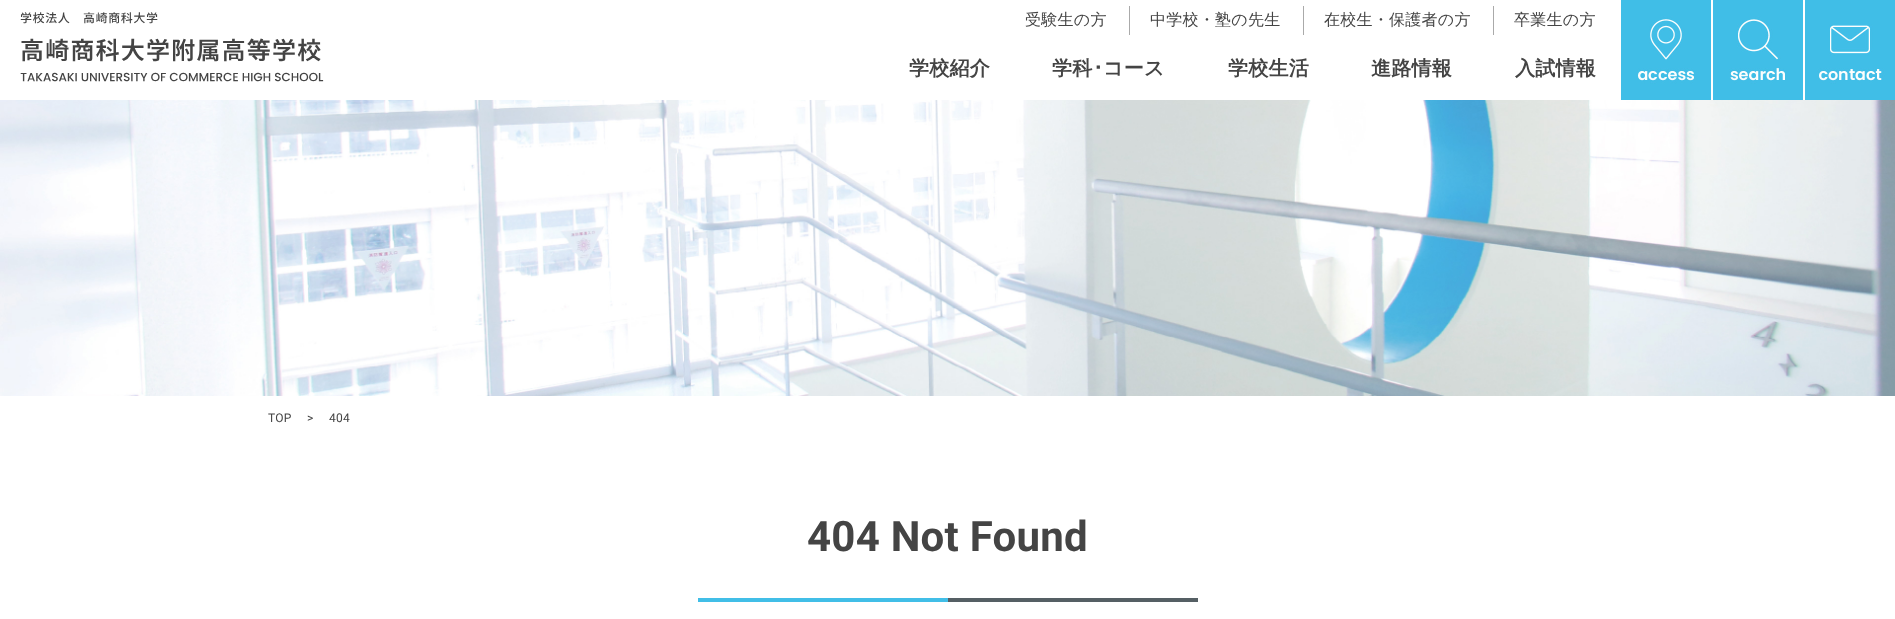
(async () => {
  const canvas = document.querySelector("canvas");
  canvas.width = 1895;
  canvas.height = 619;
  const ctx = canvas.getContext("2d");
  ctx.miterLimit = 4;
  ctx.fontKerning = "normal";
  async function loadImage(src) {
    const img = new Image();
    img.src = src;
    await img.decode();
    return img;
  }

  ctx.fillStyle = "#ffffff";
  ctx.fillRect(0, 0, 1895, 619);
  ctx.drawImage(await loadImage("img/1.png"), 20, 12, 304, 70);
  for (const [x, y, w, h, color] of [
    [1129, 6, 1, 29, "#aaaaaa"],
    [1303, 6, 1, 29, "#aaaaaa"],
    [1493, 6, 1, 29, "#aaaaaa"],
  ]) {
    ctx.fillStyle = color;
    ctx.fillRect(x, y, w, h);
  }
  ctx.drawImage(await loadImage("img/2.png"), 1621, 0, 90, 100);
  ctx.drawImage(await loadImage("img/3.png"), 1713, 0, 90, 100);
  ctx.drawImage(await loadImage("img/4.png"), 1805, 0, 90, 100);
  ctx.drawImage(await loadImage("img/5.png"), 0, 100, 1895, 296);
  ctx.fillStyle = "#41bee7";
  ctx.fillRect(698, 598, 250, 4);
  ctx.fillStyle = "#555f64";
  ctx.fillRect(948, 598, 250, 4);
  ctx.letterSpacing = "0.25px";
  ctx.font = "500 16px WenQuanYi Zen Hei";
  ctx.fillStyle = "#444444";
  for (const [text, x, y] of [
    ["受験生の方", 1025, 25],
    ["中学校・塾の先生", 1150, 25],
    ["在校生・保護者の方", 1324, 25],
    ["卒業生の方", 1514, 25],
  ]) {
    ctx.fillText(text, x, y);
  }
  ctx.font = "bold 20px WenQuanYi Zen Hei";
  ctx.fillText("学校紹介", 909, 75);
  ctx.fillText("学科", 1052, 75);
  ctx.font = "bold 20px IPAPGothic";
  ctx.fillText("･", 1093, 75);
  ctx.font = "bold 20px WenQuanYi Zen Hei";
  for (const [text, x, y] of [
    ["コース", 1103, 75],
    ["学校生活", 1228, 75],
    ["進路情報", 1371, 75],
    ["入試情報", 1515, 75],
  ]) {
    ctx.fillText(text, x, y);
  }
  ctx.font = "12px Roboto";
  for (const [text, x, y] of [
    ["TOP", 268, 422],
    [">", 307, 422],
    ["404", 329, 422],
  ]) {
    ctx.fillText(text, x, y);
  }
  ctx.font = "bold 42px Roboto";
  ctx.fillText("404 Not Found", 807, 551);
})();
